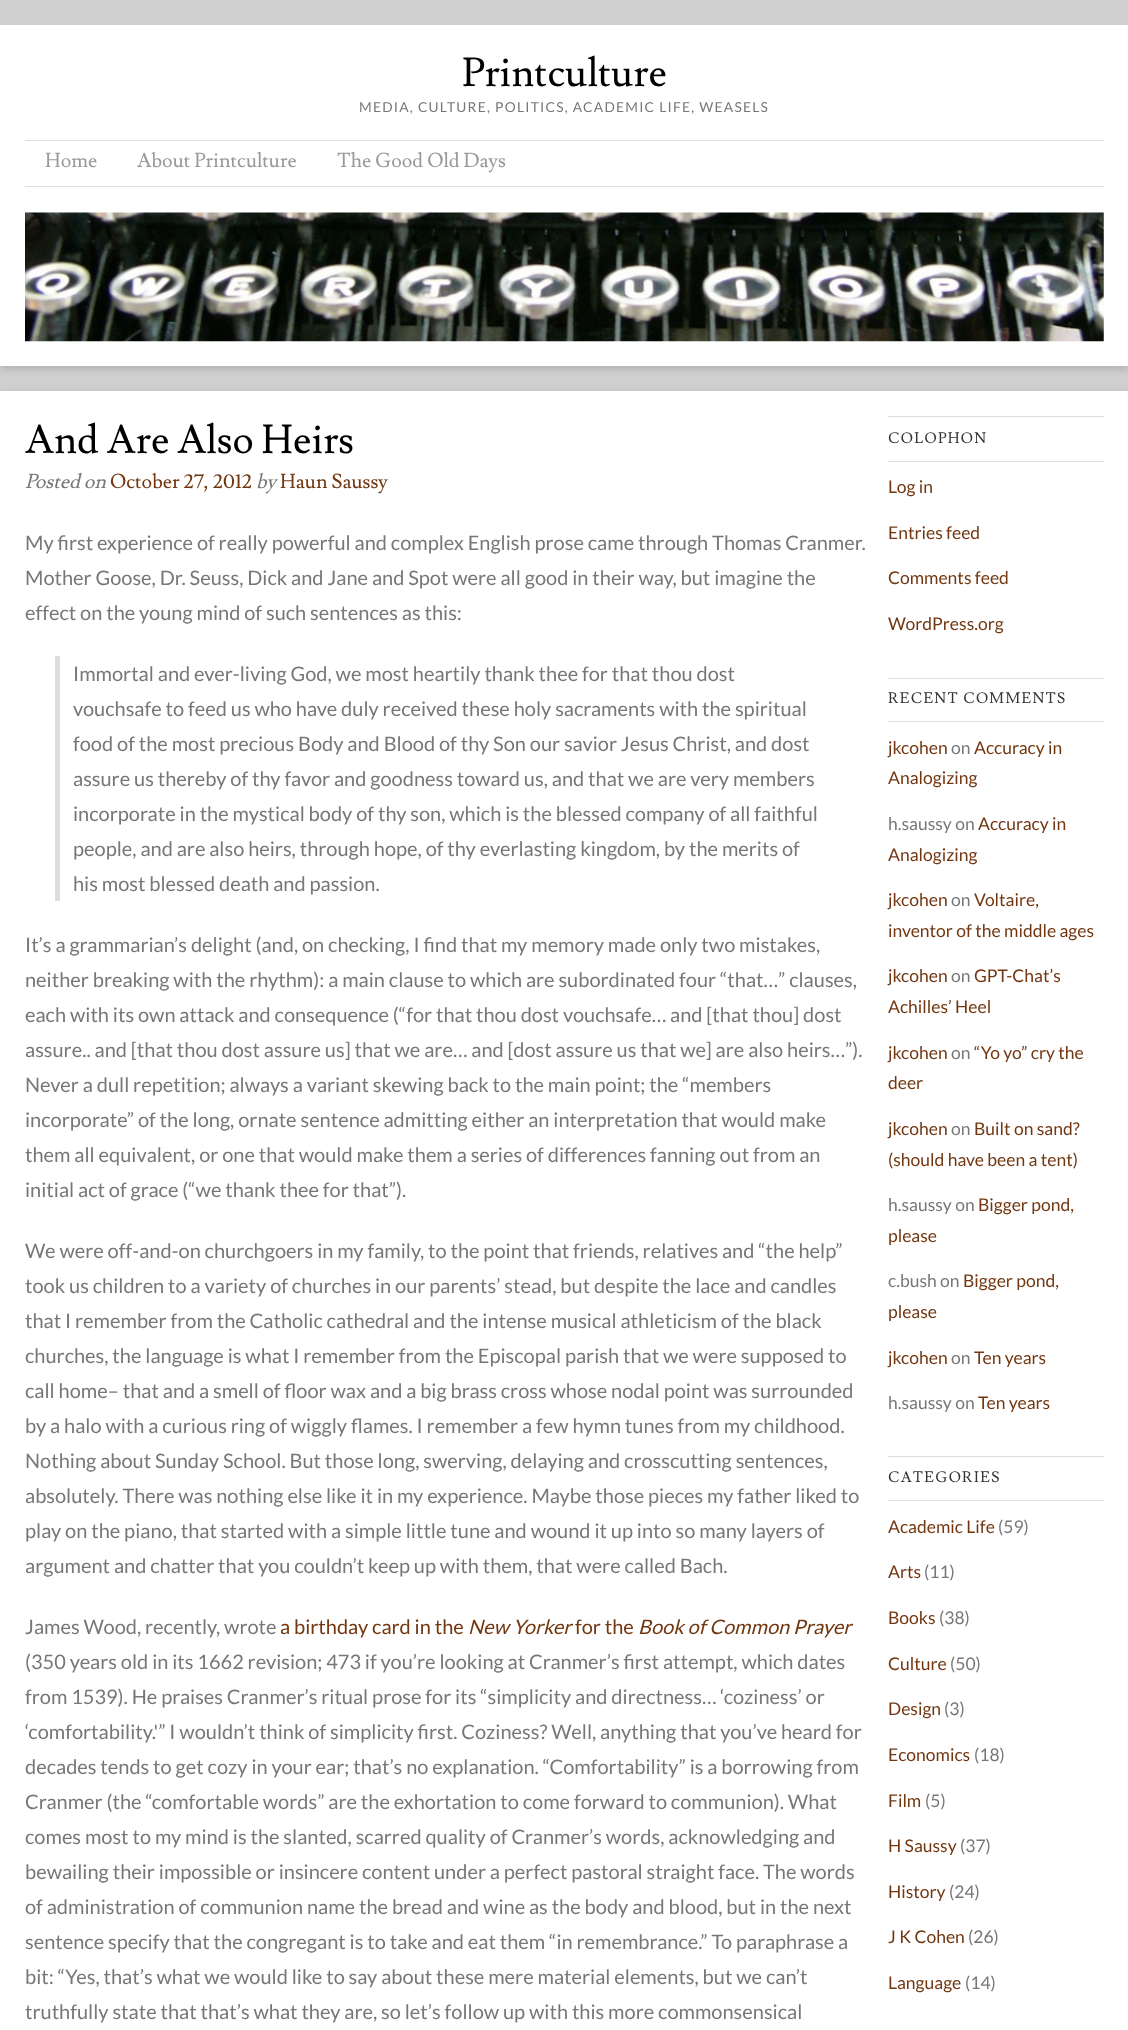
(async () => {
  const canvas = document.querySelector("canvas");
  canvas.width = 1128;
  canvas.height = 2030;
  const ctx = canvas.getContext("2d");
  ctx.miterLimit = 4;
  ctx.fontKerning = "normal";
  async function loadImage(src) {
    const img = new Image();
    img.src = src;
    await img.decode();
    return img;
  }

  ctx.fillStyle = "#d0d0d0";
  ctx.fillRect(0, 0, 1128, 2030);
  ctx.save();
  ctx.beginPath();
  ctx.rect(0, 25, 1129, 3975);
  ctx.clip();
  ctx.fillStyle = "rgba(100, 100, 100, 0.3)";
  ctx.filter = "blur(4px)";
  ctx.beginPath();
  ctx.rect(0, 28, 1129, 341);
  ctx.fill();
  ctx.filter = "none";
  ctx.restore();
  for (const [x, y, w, h, color] of [
    [0, 25, 1128, 341, "#ffffff"],
    [25, 140, 1079, 1, "#dddddd"],
    [25, 186, 1079, 1, "#dddddd"],
  ]) {
    ctx.fillStyle = color;
    ctx.fillRect(x, y, w, h);
  }
  ctx.drawImage(await loadImage("img/1.png"), 25, 212, 1079, 130);
  ctx.fillStyle = "rgba(100, 100, 100, 0.3)";
  ctx.filter = "blur(4px)";
  ctx.beginPath();
  ctx.rect(0, 394, 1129, 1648);
  ctx.fill();
  ctx.filter = "none";
  for (const [x, y, w, h, color] of [
    [0, 391, 1128, 1639, "#ffffff"],
    [55, 656, 5, 245, "#dddddd"],
    [888, 416, 216, 1, "#dddddd"],
    [888, 461, 216, 1, "#dddddd"],
    [888, 678, 216, 1, "#dddddd"],
    [888, 721, 216, 1, "#dddddd"],
    [888, 1456, 216, 1, "#dddddd"],
    [888, 1500, 216, 1, "#dddddd"],
  ]) {
    ctx.fillStyle = color;
    ctx.fillRect(x, y, w, h);
  }
  ctx.font = "40px Lusitana";
  ctx.fillStyle = "#000000";
  ctx.fillText("Printculture", 462, 86);
  ctx.letterSpacing = "1.25px";
  ctx.font = "13.75px Lato";
  ctx.fillStyle = "#777777";
  ctx.fillText("MEDIA, CULTURE, POLITICS, ACADEMIC LIFE, WEASELS", 359, 112);
  ctx.letterSpacing = "0px";
  ctx.font = "20px Lusitana";
  ctx.fillStyle = "#999999";
  for (const [text, x, y] of [
    ["Home", 45, 167],
    ["About Printculture", 137, 167],
    ["The Good Old Days", 337, 167],
  ]) {
    ctx.fillText(text, x, y);
  }
  ctx.font = "40px Lusitana";
  ctx.fillStyle = "#000000";
  ctx.fillText("And Are Also Heirs", 25, 453);
  ctx.font = "italic 20px Lusitana";
  ctx.fillStyle = "#777777";
  ctx.fillText("Posted on", 25, 488);
  ctx.font = "20px Lusitana";
  ctx.fillStyle = "#723710";
  ctx.fillText("October 27, 2012", 110, 488);
  ctx.font = "italic 20px Lusitana";
  ctx.fillStyle = "#777777";
  ctx.fillText("by", 256, 488);
  ctx.font = "20px Lusitana";
  ctx.fillStyle = "#723710";
  ctx.fillText("Haun Saussy", 280, 488);
  ctx.font = "20px Lato";
  ctx.fillStyle = "#777777";
  for (const [text, x, y] of [
    ["My first experience of really powerful and complex English prose came through Thomas Cranmer.", 25, 550],
    ["Mother Goose, Dr. Seuss, Dick and Jane and Spot were all good in their way, but imagine the", 25, 585],
    ["effect on the young mind of such sentences as this:", 25, 620],
    ["Immortal and ever-living God, we most heartily thank thee for that thou dost", 73, 681],
    ["vouchsafe to feed us who have duly received these holy sacraments with the spiritual", 73, 716],
    ["food of the most precious Body and Blood of thy Son our savior Jesus Christ, and dost", 73, 751],
    ["assure us thereby of thy favor and goodness toward us, and that we are very members", 73, 786],
    ["incorporate in the mystical body of thy son, which is the blessed company of all faithful", 73, 821],
    ["people, and are also heirs, through hope, of thy everlasting kingdom, by the merits of", 73, 856],
    ["his most blessed death and passion.", 73, 891],
    ["It’s a grammarian’s delight (and, on checking, I find that my memory made only two mistakes,", 25, 952],
    ["neither breaking with the rhythm): a main clause to which are subordinated four “that…” clauses,", 25, 987],
    ["each with its own attack and consequence (“for that thou dost vouchsafe… and [that thou] dost", 25, 1022],
    ["assure.. and [that thou dost assure us] that we are… and [dost assure us that we] are also heirs…”).", 25, 1057],
    ["Never a dull repetition; always a variant skewing back to the main point; the “members", 25, 1092],
    ["incorporate” of the long, ornate sentence admitting either an interpretation that would make", 25, 1127],
    ["them all equivalent, or one that would make them a series of differences fanning out from an", 25, 1162],
    ["initial act of grace (“we thank thee for that”).", 25, 1197],
    ["We were off-and-on churchgoers in my family, to the point that friends, relatives and “the help”", 25, 1258],
    ["took us children to a variety of churches in our parents’ stead, but despite the lace and candles", 25, 1293],
    ["that I remember from the Catholic cathedral and the intense musical athleticism of the black", 25, 1328],
    ["churches, the language is what I remember from the Episcopal parish that we were supposed to", 25, 1363],
    ["call home– that and a smell of floor wax and a big brass cross whose nodal point was surrounded", 25, 1398],
    ["by a halo with a curious ring of wiggly flames. I remember a few hymn tunes from my childhood.", 25, 1433],
    ["Nothing about Sunday School. But those long, swerving, delaying and crosscutting sentences,", 25, 1468],
    ["absolutely. There was nothing else like it in my experience. Maybe those pieces my father liked to", 25, 1503],
    ["play on the piano, that started with a simple little tune and wound it up into so many layers of", 25, 1538],
    ["argument and chatter that you couldn’t keep up with them, that were called Bach.", 25, 1573],
    ["James Wood, recently, wrote", 25, 1634],
  ]) {
    ctx.fillText(text, x, y);
  }
  ctx.fillStyle = "#723710";
  ctx.fillText("a birthday card in the", 280, 1634);
  ctx.font = "italic 20px Lato";
  ctx.fillText("New Yorker", 468, 1634);
  ctx.font = "20px Lato";
  ctx.fillText("for the", 575, 1634);
  ctx.font = "italic 20px Lato";
  ctx.fillText("Book of Common Prayer", 638, 1634);
  ctx.font = "20px Lato";
  ctx.fillStyle = "#777777";
  for (const [text, x, y] of [
    ["(350 years old in its 1662 revision; 473 if you’re looking at Cranmer’s first attempt, which dates", 25, 1669],
    ["from 1539). He praises Cranmer’s ritual prose for its “simplicity and directness… ‘coziness’ or", 25, 1704],
    ["‘comfortability.'” I wouldn’t think of simplicity first. Coziness? Well, anything that you’ve heard for", 25, 1739],
    ["decades tends to get cozy in your ear; that’s no explanation. “Comfortability” is a borrowing from", 25, 1774],
    ["Cranmer (the “comfortable words” are the exhortation to come forward to communion). What", 25, 1809],
    ["comes most to my mind is the slanted, scarred quality of Cranmer’s words, acknowledging and", 25, 1844],
    ["bewailing their impossible or insincere content under a perfect pastoral straight face. The words", 25, 1879],
    ["of administration of communion name the bread and wine as the body and blood, but in the next", 25, 1914],
    ["sentence specify that the congregant is to take and eat them “in remembrance.” To paraphrase a", 25, 1949],
    ["bit: “Yes, that’s what we would like to say about these mere material elements, but we can’t", 25, 1984],
    ["truthfully state that that’s what they are, so let’s follow up with this more commonsensical", 25, 2019],
  ]) {
    ctx.fillText(text, x, y);
  }
  ctx.letterSpacing = "1.25px";
  ctx.font = "15px Lusitana";
  ctx.fillStyle = "#333333";
  ctx.fillText("COLOPHON", 888, 443);
  ctx.letterSpacing = "0px";
  ctx.font = "17.5px Lato";
  ctx.fillStyle = "#723710";
  for (const [text, x, y] of [
    ["Log in", 888, 493],
    ["Entries feed", 888, 539],
    ["Comments feed", 888, 584],
    ["WordPress.org", 888, 630],
  ]) {
    ctx.fillText(text, x, y);
  }
  ctx.letterSpacing = "1.25px";
  ctx.font = "15px Lusitana";
  ctx.fillStyle = "#333333";
  ctx.fillText("RECENT COMMENTS", 888, 703);
  ctx.letterSpacing = "0px";
  ctx.font = "17.5px Lato";
  ctx.fillStyle = "#723710";
  ctx.fillText("jkcohen", 888, 754);
  ctx.fillStyle = "#777777";
  ctx.fillText("on", 951, 754);
  ctx.fillStyle = "#723710";
  ctx.fillText("Accuracy in", 974, 754);
  ctx.fillText("Analogizing", 888, 784);
  ctx.fillStyle = "#777777";
  ctx.fillText("h.saussy on", 888, 830);
  ctx.fillStyle = "#723710";
  for (const [text, x, y] of [
    ["Accuracy in", 978, 830],
    ["Analogizing", 888, 861],
    ["jkcohen", 888, 906],
  ]) {
    ctx.fillText(text, x, y);
  }
  ctx.fillStyle = "#777777";
  ctx.fillText("on", 951, 906);
  ctx.fillStyle = "#723710";
  for (const [text, x, y] of [
    ["Voltaire,", 974, 906],
    ["inventor of the middle ages", 888, 937],
    ["jkcohen", 888, 982],
  ]) {
    ctx.fillText(text, x, y);
  }
  ctx.fillStyle = "#777777";
  ctx.fillText("on", 951, 982);
  ctx.fillStyle = "#723710";
  for (const [text, x, y] of [
    ["GPT-Chat’s", 974, 982],
    ["Achilles’ Heel", 888, 1013],
    ["jkcohen", 888, 1059],
  ]) {
    ctx.fillText(text, x, y);
  }
  ctx.fillStyle = "#777777";
  ctx.fillText("on", 951, 1059);
  ctx.fillStyle = "#723710";
  for (const [text, x, y] of [
    ["“Yo yo” cry the", 974, 1059],
    ["deer", 888, 1089],
    ["jkcohen", 888, 1135],
  ]) {
    ctx.fillText(text, x, y);
  }
  ctx.fillStyle = "#777777";
  ctx.fillText("on", 951, 1135);
  ctx.fillStyle = "#723710";
  ctx.fillText("Built on sand?", 974, 1135);
  ctx.fillText("(should have been a tent)", 888, 1166);
  ctx.fillStyle = "#777777";
  ctx.fillText("h.saussy on", 888, 1211);
  ctx.fillStyle = "#723710";
  ctx.fillText("Bigger pond,", 978, 1211);
  ctx.fillText("please", 888, 1242);
  ctx.fillStyle = "#777777";
  ctx.fillText("c.bush on", 888, 1287);
  ctx.fillStyle = "#723710";
  for (const [text, x, y] of [
    ["Bigger pond,", 963, 1287],
    ["please", 888, 1318],
    ["jkcohen", 888, 1364],
  ]) {
    ctx.fillText(text, x, y);
  }
  ctx.fillStyle = "#777777";
  ctx.fillText("on", 951, 1364);
  ctx.fillStyle = "#723710";
  ctx.fillText("Ten years", 974, 1364);
  ctx.fillStyle = "#777777";
  ctx.fillText("h.saussy on", 888, 1409);
  ctx.fillStyle = "#723710";
  ctx.fillText("Ten years", 978, 1409);
  ctx.letterSpacing = "1.25px";
  ctx.font = "15px Lusitana";
  ctx.fillStyle = "#333333";
  ctx.fillText("CATEGORIES", 888, 1482);
  ctx.letterSpacing = "0px";
  ctx.font = "17.5px Lato";
  ctx.fillStyle = "#723710";
  ctx.fillText("Academic Life", 888, 1533);
  ctx.fillStyle = "#777777";
  ctx.fillText("(59)", 998, 1533);
  ctx.fillStyle = "#723710";
  ctx.fillText("Arts", 888, 1578);
  ctx.fillStyle = "#777777";
  ctx.fillText("(11)", 924, 1578);
  ctx.fillStyle = "#723710";
  ctx.fillText("Books", 888, 1624);
  ctx.fillStyle = "#777777";
  ctx.fillText("(38)", 939, 1624);
  ctx.fillStyle = "#723710";
  ctx.fillText("Culture", 888, 1670);
  ctx.fillStyle = "#777777";
  ctx.fillText("(50)", 950, 1670);
  ctx.fillStyle = "#723710";
  ctx.fillText("Design", 888, 1715);
  ctx.fillStyle = "#777777";
  ctx.fillText("(3)", 944, 1715);
  ctx.fillStyle = "#723710";
  ctx.fillText("Economics", 888, 1761);
  ctx.fillStyle = "#777777";
  ctx.fillText("(18)", 974, 1761);
  ctx.fillStyle = "#723710";
  ctx.fillText("Film", 888, 1807);
  ctx.fillStyle = "#777777";
  ctx.fillText("(5)", 925, 1807);
  ctx.fillStyle = "#723710";
  ctx.fillText("H Saussy", 888, 1852);
  ctx.fillStyle = "#777777";
  ctx.fillText("(37)", 960, 1852);
  ctx.fillStyle = "#723710";
  ctx.fillText("History", 888, 1898);
  ctx.fillStyle = "#777777";
  ctx.fillText("(24)", 949, 1898);
  ctx.fillStyle = "#723710";
  ctx.fillText("J K Cohen", 888, 1943);
  ctx.fillStyle = "#777777";
  ctx.fillText("(26)", 968, 1943);
  ctx.fillStyle = "#723710";
  ctx.fillText("Language", 888, 1989);
  ctx.fillStyle = "#777777";
  ctx.fillText("(14)", 965, 1989);
})();
